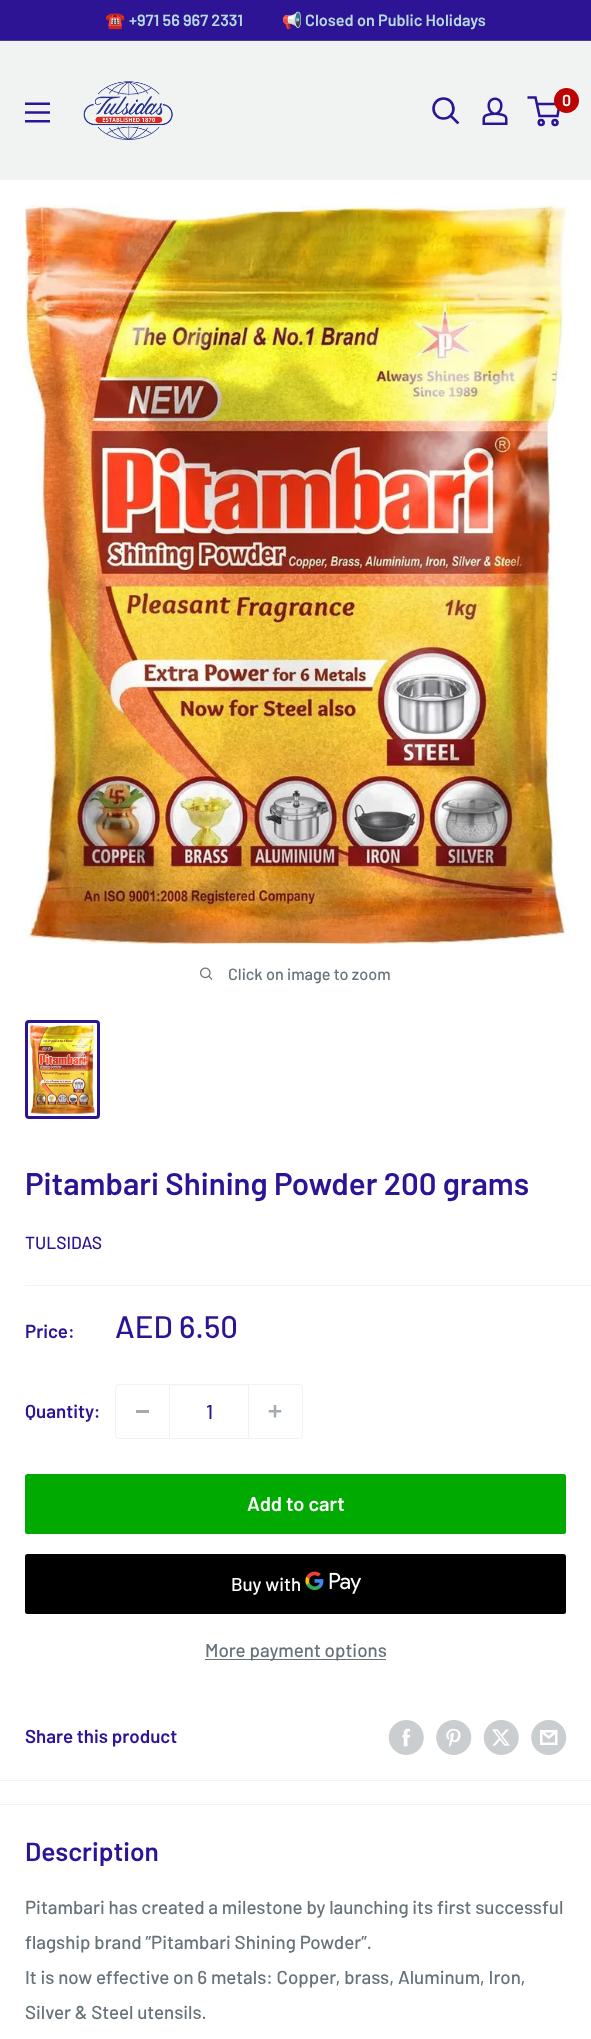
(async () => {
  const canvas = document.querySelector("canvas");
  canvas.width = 591;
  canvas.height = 2039;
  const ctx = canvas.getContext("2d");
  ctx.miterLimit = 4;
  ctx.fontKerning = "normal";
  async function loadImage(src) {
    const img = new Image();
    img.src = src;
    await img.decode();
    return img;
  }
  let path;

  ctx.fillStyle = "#ffffff";
  ctx.fillRect(0, 0, 591, 2039);
  for (const [x, y, w, h, color] of [
    [0, 0, 591, 40, "#2d1494"],
    [0, 40, 591, 1, "#4d3b95"],
    [0, 41, 591, 139, "#f1f2f2"],
  ]) {
    ctx.fillStyle = color;
    ctx.fillRect(x, y, w, h);
  }
  ctx.drawImage(await loadImage("img/1.png"), 83, 81, 90, 59);
  path = new Path2D("M457.5 122.5L451 116");
  ctx.strokeStyle = "#2d1494";
  ctx.lineWidth = 2.6;
  ctx.lineCap = "square";
  ctx.stroke(path);
  ctx.beginPath();
  ctx.arc(443.5, 108.5, 10, 0, Math.PI * 2);
  ctx.stroke();
  ctx.drawImage(await loadImage("img/2.png"), 482, 97, 26, 28);
  ctx.beginPath();
  ctx.arc(541.2, 122.5, 2.5, 0, Math.PI * 2);
  ctx.lineWidth = 2.5;
  ctx.stroke();
  ctx.beginPath();
  ctx.arc(555, 122.5, 2.5, 0, Math.PI * 2);
  ctx.stroke();
  path = new Path2D("M536.5 104H559.5L557.5 116H539.5L535.5 97.5H527.5");
  ctx.lineCap = "butt";
  ctx.stroke(path);
  ctx.fillStyle = "#bc0202";
  ctx.beginPath();
  ctx.arc(566.5, 100.5, 12.5, 0, Math.PI * 2);
  ctx.fill();
  ctx.drawImage(await loadImage("img/3.png"), 25, 102, 25, 21);
  ctx.drawImage(await loadImage("img/4.png"), 25, 205, 542, 739);
  ctx.drawImage(await loadImage("img/5.png"), 200, 967, 13, 13);
  ctx.beginPath();
  ctx.roundRect(26.5, 1021.5, 72, 96, 2.5);
  ctx.lineWidth = 3;
  ctx.stroke();
  ctx.drawImage(await loadImage("img/6.png"), 30, 1025, 65, 89);
  ctx.fillStyle = "#f1f2f2";
  ctx.fillRect(0, 1780, 591, 1);
  ctx.fillRect(25, 1285, 566, 1);
  ctx.beginPath();
  ctx.roundRect(115.5, 1384.5, 187, 54, 3.5);
  ctx.strokeStyle = "#f1f2f2";
  ctx.lineWidth = 1;
  ctx.stroke();
  for (const [x, y, w, h, color] of [
    [136, 1410, 13, 3, "#a4aaaf"],
    [170, 1385, 78, 1, "#f9fafa"],
    [248, 1385, 1, 53, "#f1f2f2"],
    [169, 1385, 1, 53, "#f1f2f2"],
  ]) {
    ctx.fillStyle = color;
    ctx.fillRect(x, y, w, h);
  }
  ctx.drawImage(await loadImage("img/7.png"), 268, 1405, 14, 13);
  ctx.fillStyle = "#00aa00";
  ctx.beginPath();
  ctx.roundRect(25, 1474, 541, 60, 2.5);
  ctx.fill();
  ctx.fillStyle = "#000000";
  ctx.beginPath();
  ctx.roundRect(25, 1554, 541, 60, 2.5);
  ctx.fill();
  ctx.drawImage(await loadImage("img/8.png"), 305, 1571, 56, 23);
  ctx.fillStyle = "#677279";
  ctx.fillRect(205, 1659, 181, 1);
  ctx.drawImage(await loadImage("img/9.png"), 388, 1720, 36, 35);
  ctx.drawImage(await loadImage("img/10.png"), 436, 1720, 36, 35);
  ctx.drawImage(await loadImage("img/11.png"), 483, 1720, 36, 35);
  ctx.drawImage(await loadImage("img/12.png"), 531, 1720, 36, 35);
  ctx.fillStyle = "#f1f2f2";
  ctx.fillRect(0, 1804, 591, 1);
  ctx.font = "bold 16.25px Noto Color Emoji";
  ctx.fillStyle = "#b7dbe1";
  ctx.fillText("☎️", 105, 26);
  ctx.font = "600 16.25px Barlow";
  ctx.fillText("+971 56 967 2331", 129, 26);
  ctx.font = "bold 16.25px Noto Color Emoji";
  ctx.fillText("📢", 282, 26);
  ctx.font = "600 16.25px Barlow";
  ctx.fillText("Closed on Public Holidays", 305, 26);
  ctx.font = "600 16px Barlow";
  ctx.fillStyle = "#ffffff";
  ctx.fillText("0", 562, 106);
  ctx.font = "500 16.25px Barlow";
  ctx.fillStyle = "#677279";
  ctx.fillText("Click on image to zoom", 228, 980);
  ctx.font = "600 31.25px Barlow";
  ctx.fillStyle = "#2d1494";
  ctx.fillText("Pitambari Shining Powder 200 grams", 25, 1195);
  ctx.font = "500 17.5px Barlow";
  ctx.fillText("TULSIDAS", 25, 1249);
  ctx.font = "600 18.75px Barlow";
  ctx.fillText("Price:", 25, 1338);
  ctx.font = "500 31.25px Barlow";
  ctx.fillText("AED 6.50", 115, 1338);
  ctx.font = "600 18.75px Barlow";
  ctx.fillText("Quantity:", 25, 1418);
  ctx.font = "500 20px Barlow";
  ctx.fillText("1", 206, 1419);
  ctx.font = "600 20px Barlow";
  ctx.fillStyle = "#ffffff";
  ctx.fillText("Add to cart", 247, 1511);
  ctx.font = "500 18.75px Barlow";
  ctx.fillText("Buy with", 231, 1591);
  ctx.fillStyle = "#677279";
  ctx.fillText("More payment options", 205, 1657);
  ctx.font = "600 18.75px Barlow";
  ctx.fillStyle = "#2d1494";
  ctx.fillText("Share this product", 25, 1743);
  ctx.font = "600 26.25px Barlow";
  ctx.fillText("Description", 25, 1861);
  ctx.font = "500 18.75px Barlow";
  ctx.fillStyle = "#677279";
  for (const [text, x, y] of [
    ["Pitambari has created a milestone by launching its first successful", 25, 1914],
    ["flagship brand ”Pitambari Shining Powder”.", 25, 1949],
    ["It is now effective on 6 metals: Copper, brass, Aluminum, Iron,", 25, 1984],
    ["Silver & Steel utensils.", 25, 2019],
  ]) {
    ctx.fillText(text, x, y);
  }
})();
